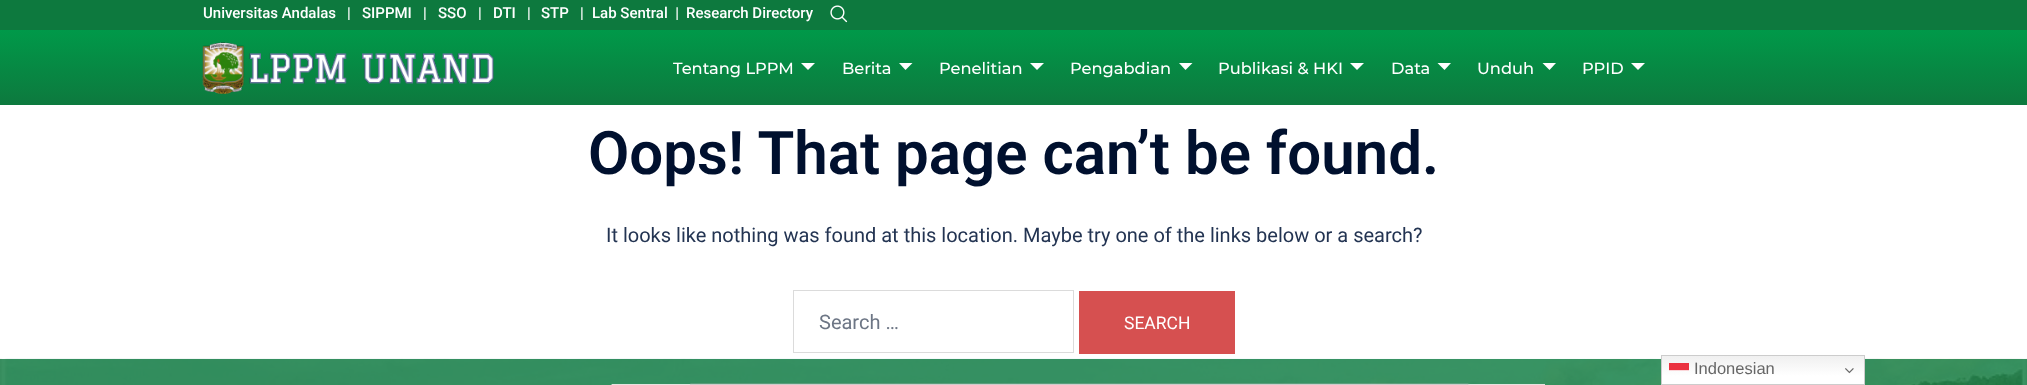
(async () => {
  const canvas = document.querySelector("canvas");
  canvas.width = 2027;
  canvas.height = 385;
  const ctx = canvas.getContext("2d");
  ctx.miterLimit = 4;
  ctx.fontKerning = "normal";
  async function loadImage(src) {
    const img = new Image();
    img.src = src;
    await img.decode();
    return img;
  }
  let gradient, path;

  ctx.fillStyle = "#ffffff";
  ctx.fillRect(0, 0, 2027, 385);
  ctx.fillStyle = "#0d793e";
  ctx.fillRect(0, 0, 2027, 30);
  ctx.drawImage(await loadImage("img/1.png"), 830, 5, 18, 18);
  gradient = ctx.createLinearGradient(1014, 30, 1014, 105);
  gradient.addColorStop(0, "#009949");
  gradient.addColorStop(1, "#0d793e");
  ctx.fillStyle = gradient;
  ctx.fillRect(0, 30, 2027, 75);
  ctx.drawImage(await loadImage("img/2.png"), 202, 42, 292, 52);
  ctx.fillStyle = "#ffffff";
  path = new Path2D("M801 63H815L808 70Z");
  ctx.fill(path);
  path = new Path2D("M899 63H912.5L905.5 70Z");
  ctx.fill(path);
  path = new Path2D("M1030 63H1044L1037 70Z");
  ctx.fill(path);
  path = new Path2D("M1179 63H1192.5L1185.5 70Z");
  ctx.fill(path);
  path = new Path2D("M1350 63H1364L1357 70Z");
  ctx.fill(path);
  path = new Path2D("M1437.5 63H1451L1444.5 70Z");
  ctx.fill(path);
  path = new Path2D("M1542.5 63H1556L1549.5 70Z");
  ctx.fill(path);
  path = new Path2D("M1631 63H1645L1638 70Z");
  ctx.fill(path);
  ctx.strokeStyle = "#dbdbdb";
  ctx.strokeRect(793.5, 290.5, 280, 62);
  ctx.fillStyle = "#d65050";
  ctx.fillRect(1079, 291, 156, 63);
  ctx.drawImage(await loadImage("img/3.png"), 0, 358, 2027, 27);
  ctx.drawImage(await loadImage("img/4.png"), 611, 383, 934, 2);
  gradient = ctx.createLinearGradient(1763, 355, 1763, 385);
  gradient.addColorStop(0, "#efefef");
  gradient.addColorStop(0.7, "#ffffff");
  ctx.fillStyle = gradient;
  ctx.fillRect(1662, 356, 202, 28);
  ctx.strokeStyle = "#cccccc";
  ctx.strokeRect(1661.5, 355.5, 203, 29);
  ctx.fillStyle = "rgba(231, 0, 17, 0.8)";
  ctx.fillRect(1669, 363, 20, 8);
  ctx.drawImage(await loadImage("img/5.png"), 1845, 368, 9, 6);
  ctx.fillStyle = "rgba(255, 255, 255, 0.8)";
  ctx.fillRect(1669, 370, 20, 1);
  ctx.font = "500 15px Roboto";
  ctx.fillStyle = "#ffffff";
  for (const [text, x, y] of [
    ["Universitas Andalas", 203, 18],
    ["|", 347, 18],
    ["SIPPMI", 362, 18],
    ["|", 423, 18],
    ["SSO", 438, 18],
    ["|", 478, 18],
    ["DTI", 493, 18],
    ["|", 527, 18],
    ["STP", 541, 18],
    ["|", 580, 18],
    ["Lab Sentral  |", 592, 18],
    ["Research Directory", 686, 18],
  ]) {
    ctx.fillText(text, x, y);
  }
  ctx.font = "500 16.25px Montserrat";
  for (const [text, x, y] of [
    ["Tentang LPPM", 673, 74],
    ["Berita", 842, 74],
    ["Penelitian", 939, 74],
    ["Pengabdian", 1070, 74],
    ["Publikasi & HKI", 1218, 74],
    ["Data", 1391, 74],
    ["Unduh", 1477, 74],
    ["PPID", 1582, 74],
  ]) {
    ctx.fillText(text, x, y);
  }
  ctx.font = "600 60px Roboto";
  ctx.fillStyle = "#00102e";
  ctx.fillText("Oops! That page can’t be found.", 588, 174);
  ctx.font = "20px Roboto";
  ctx.fillStyle = "#233452";
  ctx.fillText("It looks like nothing was found at this location. Maybe try one of the links below or a search?", 606, 242);
  ctx.fillStyle = "#6d7685";
  ctx.fillText("Search …", 819, 329);
  ctx.font = "17.5px Roboto";
  ctx.fillStyle = "#ffffff";
  ctx.fillText("SEARCH", 1124, 329);
  ctx.font = "16.5px Liberation Sans";
  ctx.fillStyle = "#666666";
  ctx.fillText("Indonesian", 1694, 374);
})();
